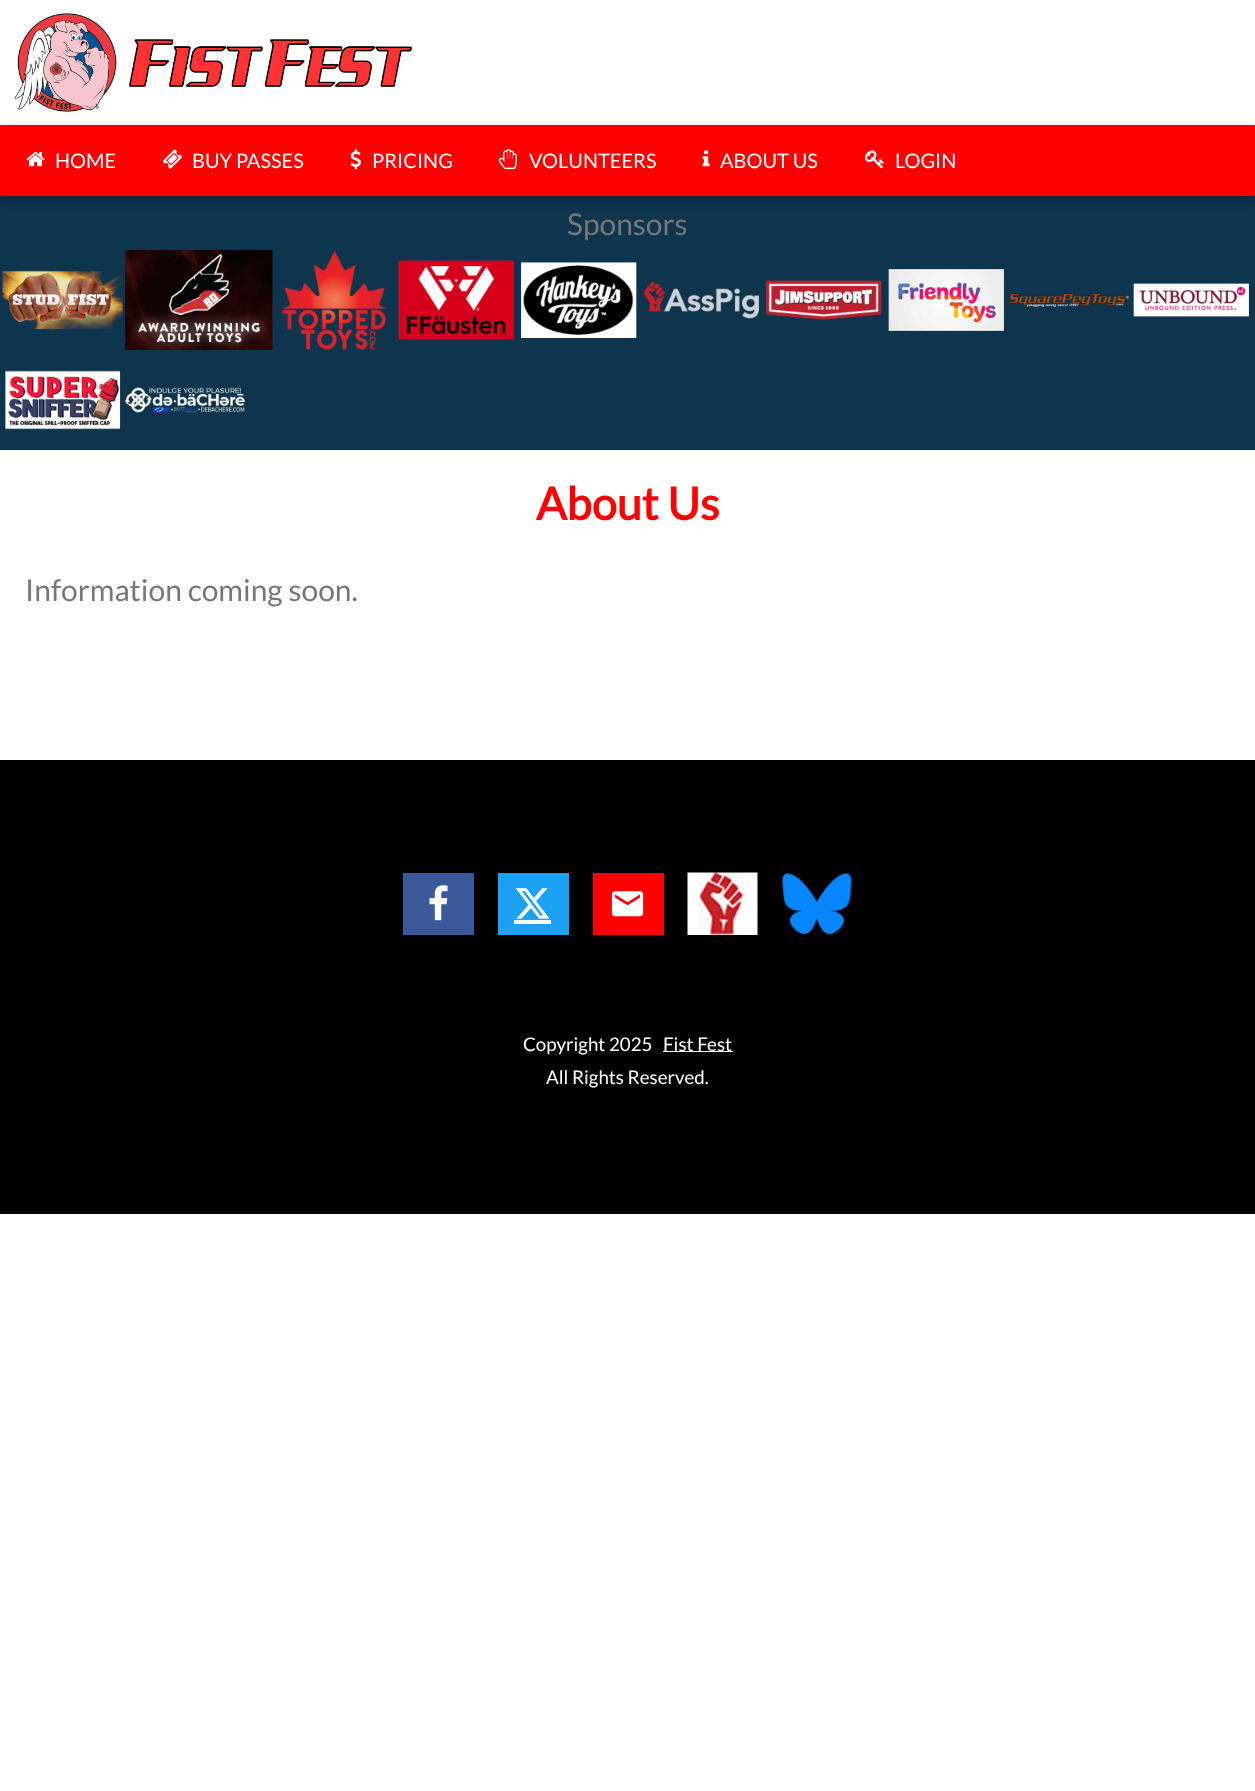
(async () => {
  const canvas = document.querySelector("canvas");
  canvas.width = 1255;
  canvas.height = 1791;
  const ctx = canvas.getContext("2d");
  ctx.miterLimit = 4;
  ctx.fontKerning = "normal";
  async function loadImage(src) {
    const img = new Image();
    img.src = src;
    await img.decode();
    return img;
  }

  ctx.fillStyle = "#ffffff";
  ctx.fillRect(0, 0, 1255, 1791);
  ctx.drawImage(await loadImage("img/1.png"), 14, 13, 398, 99);
  ctx.fillStyle = "#0f344d";
  ctx.fillRect(0, 196, 1255, 254);
  ctx.fillStyle = "rgba(0, 0, 0, 0.12)";
  ctx.filter = "blur(6px)";
  ctx.beginPath();
  ctx.rect(0, 128, 1255, 71);
  ctx.fill();
  ctx.filter = "none";
  ctx.fillStyle = "rgba(0, 0, 0, 0.16)";
  ctx.filter = "blur(3px)";
  ctx.beginPath();
  ctx.rect(0, 128, 1255, 71);
  ctx.fill();
  ctx.filter = "none";
  ctx.fillStyle = "#ff0000";
  ctx.fillRect(0, 125, 1255, 71);
  ctx.drawImage(await loadImage("img/2.png"), 26, 151, 19, 16);
  ctx.drawImage(await loadImage("img/3.png"), 163, 149, 19, 20);
  ctx.drawImage(await loadImage("img/4.png"), 350, 149, 11, 21);
  ctx.drawImage(await loadImage("img/5.png"), 498, 149, 19, 21);
  ctx.drawImage(await loadImage("img/6.png"), 702, 150, 8, 17);
  ctx.drawImage(await loadImage("img/7.png"), 865, 150, 19, 19);
  ctx.drawImage(await loadImage("img/8.png"), 2, 269, 121, 61);
  ctx.drawImage(await loadImage("img/9.png"), 125, 250, 148, 100);
  ctx.drawImage(await loadImage("img/10.png"), 282, 250, 104, 100);
  ctx.drawImage(await loadImage("img/11.png"), 396, 259, 119, 81);
  ctx.drawImage(await loadImage("img/12.png"), 521, 261, 116, 78);
  ctx.drawImage(await loadImage("img/13.png"), 643, 281, 117, 38);
  ctx.drawImage(await loadImage("img/14.png"), 765, 280, 117, 40);
  ctx.drawImage(await loadImage("img/15.png"), 888, 269, 117, 63);
  ctx.drawImage(await loadImage("img/16.png"), 1008, 292, 121, 16);
  ctx.drawImage(await loadImage("img/17.png"), 1133, 283, 117, 34);
  ctx.drawImage(await loadImage("img/18.png"), 4, 369, 117, 61);
  ctx.drawImage(await loadImage("img/19.png"), 125, 386, 120, 27);
  ctx.fillStyle = "#000000";
  ctx.fillRect(0, 760, 1255, 454);
  ctx.fillStyle = "#3b5998";
  ctx.fillRect(403, 873, 71, 62);
  ctx.drawImage(await loadImage("img/20.png"), 429, 885, 19, 36);
  ctx.fillStyle = "#1da1f2";
  ctx.fillRect(498, 873, 71, 62);
  ctx.drawImage(await loadImage("img/21.png"), 515, 888, 35, 31);
  ctx.fillStyle = "#ffffff";
  ctx.fillRect(514, 920, 37, 4);
  ctx.fillStyle = "#ff0000";
  ctx.fillRect(593, 873, 71, 62);
  ctx.drawImage(await loadImage("img/22.png"), 611, 891, 33, 26);
  ctx.drawImage(await loadImage("img/23.png"), 687, 872, 71, 63);
  ctx.drawImage(await loadImage("img/24.png"), 782, 873, 70, 62);
  ctx.fillStyle = "#ffffff";
  ctx.fillRect(663, 1051, 70, 1);
  ctx.font = "20px Lato";
  for (const [text, x, y] of [
    ["HOME", 55, 168],
    ["BUY PASSES", 192, 168],
    ["PRICING", 372, 168],
    ["VOLUNTEERS", 529, 168],
    ["ABOUT US", 720, 168],
    ["LOGIN", 895, 168],
  ]) {
    ctx.fillText(text, x, y);
  }
  ctx.font = "30px Lato";
  ctx.fillStyle = "#777777";
  ctx.fillText("Sponsors", 567, 235);
  ctx.font = "bold 45px Lato";
  ctx.fillStyle = "#ff0000";
  ctx.fillText("About Us", 536, 520);
  ctx.font = "30px Lato";
  ctx.fillStyle = "#777777";
  ctx.fillText("Information coming soon.", 25, 601);
  ctx.font = "18.75px Lato";
  ctx.fillStyle = "#ffffff";
  for (const [text, x, y] of [
    ["Copyright 2025", 523, 1051],
    ["Fist Fest", 663, 1051],
    ["All Rights Reserved.", 546, 1084],
  ]) {
    ctx.fillText(text, x, y);
  }
})();
